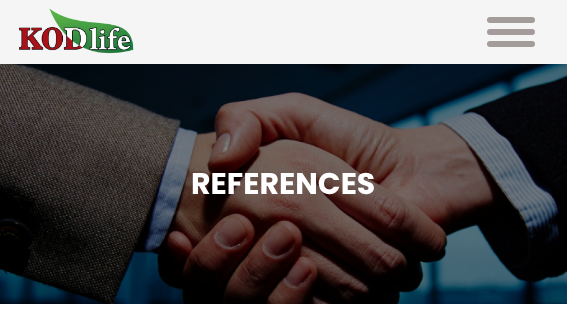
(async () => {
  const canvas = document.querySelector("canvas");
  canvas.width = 567;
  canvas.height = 335;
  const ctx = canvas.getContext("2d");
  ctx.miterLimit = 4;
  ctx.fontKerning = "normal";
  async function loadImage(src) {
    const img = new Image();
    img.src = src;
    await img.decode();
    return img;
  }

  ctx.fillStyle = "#ffffff";
  ctx.fillRect(0, 0, 567, 335);
  ctx.fillStyle = "#f5f5f5";
  ctx.fillRect(0, 0, 567, 64);
  ctx.drawImage(await loadImage("img/1.png"), 19, 8, 115, 46);
  ctx.fillStyle = "#a49b9b";
  ctx.beginPath();
  ctx.roundRect(487, 17, 48, 6, 3);
  ctx.fill();
  ctx.beginPath();
  ctx.roundRect(487, 29, 48, 6, 3);
  ctx.fill();
  ctx.beginPath();
  ctx.roundRect(487, 41, 48, 6, 3);
  ctx.fill();
  ctx.drawImage(await loadImage("img/2.png"), 0, 64, 567, 240);
  ctx.font = "bold 30px Poppins";
  ctx.fillStyle = "#ffffff";
  ctx.fillText("REFERENCES", 191, 194);
})();
